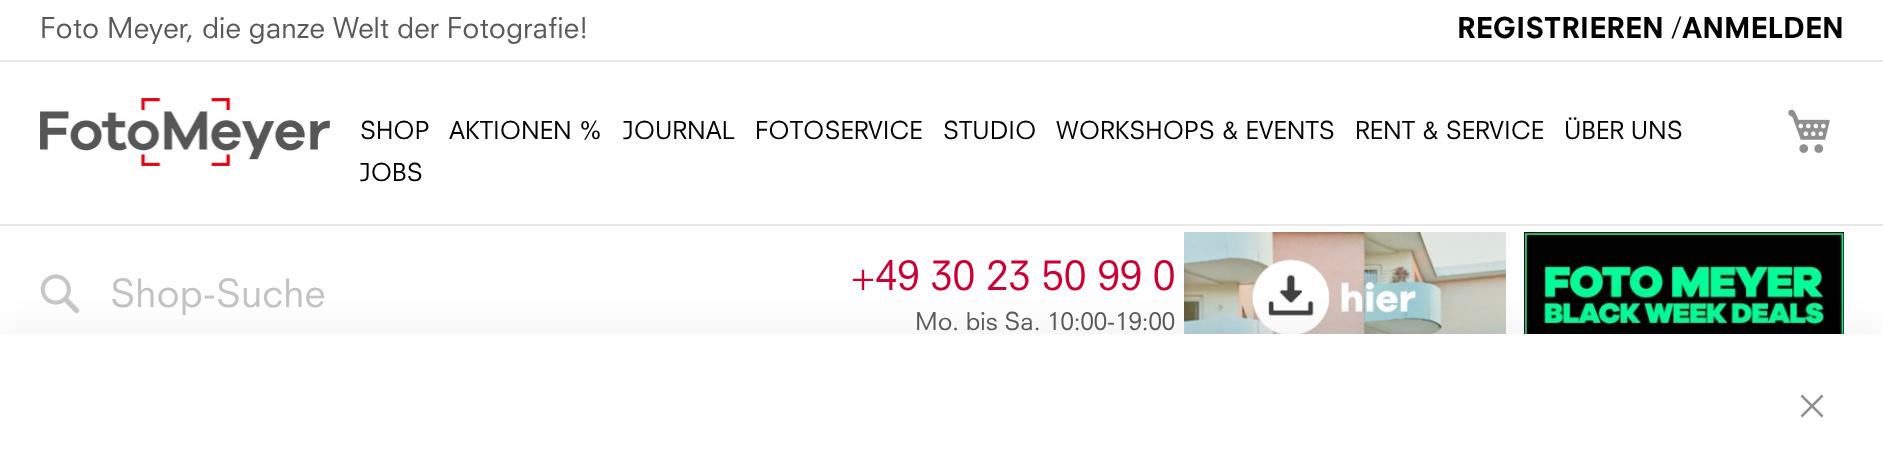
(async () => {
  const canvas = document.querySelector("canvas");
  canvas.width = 1883;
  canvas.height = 453;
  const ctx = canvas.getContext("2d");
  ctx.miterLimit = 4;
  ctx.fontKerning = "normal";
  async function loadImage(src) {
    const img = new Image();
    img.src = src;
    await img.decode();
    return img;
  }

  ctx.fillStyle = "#ffffff";
  ctx.fillRect(0, 0, 1883, 453);
  ctx.fillStyle = "#e8e8e8";
  ctx.fillRect(0, 60, 1883, 2);
  ctx.drawImage(await loadImage("img/1.png"), 40, 98, 290, 68);
  ctx.drawImage(await loadImage("img/2.png"), 1788, 109, 42, 44);
  ctx.drawImage(await loadImage("img/3.png"), 40, 274, 40, 40);
  ctx.drawImage(await loadImage("img/4.png"), 1184, 232, 322, 102);
  ctx.drawImage(await loadImage("img/5.png"), 1524, 232, 320, 102);
  ctx.fillRect(0, 224, 1883, 2);
  ctx.fillStyle = "rgba(0, 0, 0, 0.06)";
  ctx.filter = "blur(18px)";
  ctx.beginPath();
  ctx.rect(0, 330, 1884, 120);
  ctx.fill();
  ctx.filter = "none";
  ctx.fillStyle = "#ffffff";
  ctx.fillRect(0, 334, 1883, 119);
  ctx.drawImage(await loadImage("img/6.png"), 1800, 394, 24, 24);
  ctx.font = "28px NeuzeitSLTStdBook";
  ctx.fillStyle = "#595959";
  ctx.fillText("Foto Meyer, die ganze Welt der Fotografie!", 40, 38);
  ctx.font = "900 28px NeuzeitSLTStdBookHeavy";
  ctx.fillStyle = "#000000";
  ctx.fillText("REGISTRIEREN", 1457, 38);
  ctx.font = "28px NeuzeitSLTStdBook";
  ctx.fillText("/", 1671, 38);
  ctx.font = "900 28px NeuzeitSLTStdBookHeavy";
  ctx.fillText("ANMELDEN", 1682, 38);
  ctx.font = "24px NeuzeitSLTStdBook";
  for (const [text, x, y] of [
    ["SHOP", 360, 139],
    ["AKTIONEN %", 449, 139],
    ["JOURNAL", 623, 139],
    ["FOTOSERVICE", 755, 139],
    ["STUDIO", 943, 139],
    ["WORKSHOPS & EVENTS", 1056, 139],
    ["RENT & SERVICE", 1355, 139],
    ["ÜBER UNS", 1564, 139],
    ["JOBS", 360, 181],
  ]) {
    ctx.fillText(text, x, y);
  }
  ctx.font = "38px NeuzeitSLTStdBook";
  ctx.fillStyle = "#c2c2c2";
  ctx.fillText("Shop-Suche", 110, 307);
  ctx.font = "40px NeuzeitSLTStdBook";
  ctx.fillStyle = "#cc0033";
  ctx.fillText("+49 30 23 50 99 0", 851, 290);
  ctx.font = "24px NeuzeitSLTStdBook";
  ctx.fillStyle = "#595959";
  ctx.fillText("Mo. bis Sa. 10:00-19:00", 915, 330);
})();
